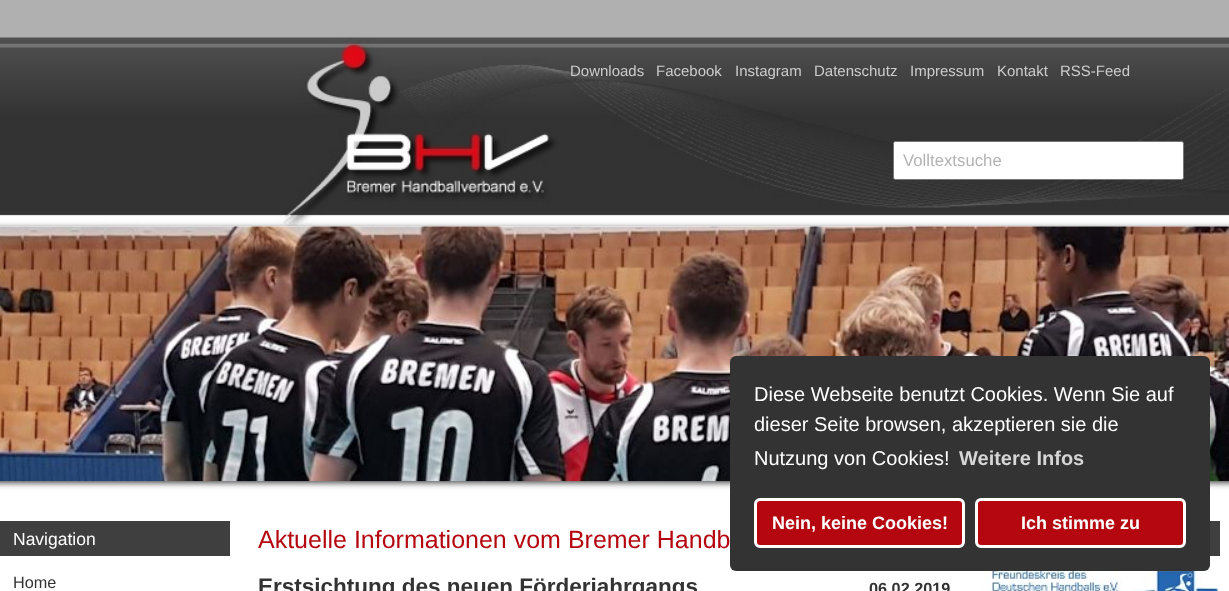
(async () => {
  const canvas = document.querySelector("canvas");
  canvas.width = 1229;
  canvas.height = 591;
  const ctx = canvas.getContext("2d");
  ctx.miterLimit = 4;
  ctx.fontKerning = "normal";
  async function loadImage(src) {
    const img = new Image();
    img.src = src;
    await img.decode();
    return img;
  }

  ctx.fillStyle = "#b0b0b0";
  ctx.fillRect(0, 0, 1229, 591);
  ctx.drawImage(await loadImage("img/1.png"), 0, 37, 1229, 189);
  ctx.fillStyle = "#ffffff";
  ctx.beginPath();
  ctx.roundRect(893.5, 141.5, 290, 38, 2);
  ctx.fill();
  ctx.strokeStyle = "#767676";
  ctx.stroke();
  ctx.fillRect(0, 481, 1229, 110);
  ctx.fillStyle = "#4a4a4a";
  ctx.filter = "blur(3px)";
  ctx.beginPath();
  ctx.rect(-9, 228, 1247, 255);
  ctx.fill();
  ctx.filter = "none";
  ctx.fillStyle = "#ffffff";
  ctx.fillRect(0, 226, 1229, 1);
  ctx.drawImage(await loadImage("img/2.png"), 0, 226, 1229, 256);
  ctx.fillStyle = "#3f3f3f";
  ctx.fillRect(0, 521, 230, 35);
  ctx.fillRect(1210, 521, 10, 35);
  ctx.drawImage(await loadImage("img/3.png"), 983, 568, 236, 23);
  ctx.fillStyle = "#333333";
  ctx.beginPath();
  ctx.roundRect(730, 356, 480, 215, 6);
  ctx.fill();
  ctx.fillStyle = "#b40710";
  ctx.beginPath();
  ctx.roundRect(755.5, 499.5, 208, 47, 4.5);
  ctx.fill();
  ctx.strokeStyle = "#ffffff";
  ctx.lineWidth = 3;
  ctx.stroke();
  ctx.beginPath();
  ctx.roundRect(976.5, 499.5, 208, 47, 4.5);
  ctx.fill();
  ctx.stroke();
  ctx.font = "15px Liberation Sans";
  ctx.fillStyle = "#cccccc";
  for (const [text, x, y] of [
    ["Downloads", 570, 76],
    ["Facebook", 656, 76],
    ["Instagram", 735, 76],
    ["Datenschutz", 814, 76],
    ["Impressum", 910, 76],
    ["Kontakt", 997, 76],
    ["RSS-Feed", 1060, 76],
  ]) {
    ctx.fillText(text, x, y);
  }
  ctx.font = "16.75px Liberation Sans";
  ctx.fillStyle = "#b3b3b3";
  ctx.fillText("Volltextsuche", 903, 166);
  ctx.font = "17.5px Liberation Sans";
  ctx.fillStyle = "#ffffff";
  ctx.fillText("Navigation", 13, 545);
  ctx.font = "16.25px Liberation Sans";
  ctx.fillStyle = "#333333";
  ctx.fillText("Home", 13, 588);
  ctx.font = "25px Liberation Sans";
  ctx.fillStyle = "#b40710";
  ctx.fillText("Aktuelle Informationen vom Bremer Handb", 258, 548);
  ctx.font = "bold 22.5px Liberation Sans";
  ctx.fillStyle = "#333333";
  ctx.fillText("Erstsichtung des neuen Förderjahrgangs", 258, 594);
  ctx.font = "bold 16.25px Liberation Sans";
  ctx.fillText("06.02.2019", 869, 594);
  ctx.font = "20px Liberation Sans";
  ctx.fillStyle = "#ffffff";
  for (const [text, x, y] of [
    ["Diese Webseite benutzt Cookies. Wenn Sie auf", 754, 401],
    ["dieser Seite browsen, akzeptieren sie die", 754, 431],
    ["Nutzung von Cookies!", 754, 465],
  ]) {
    ctx.fillText(text, x, y);
  }
  ctx.font = "bold 20px Liberation Sans";
  ctx.fillStyle = "#d6d6d6";
  ctx.fillText("Weitere Infos", 959, 465);
  ctx.font = "bold 18px Liberation Sans";
  ctx.fillStyle = "#ffffff";
  ctx.fillText("Nein, keine Cookies!", 772, 529);
  ctx.fillText("Ich stimme zu", 1021, 529);
})();
